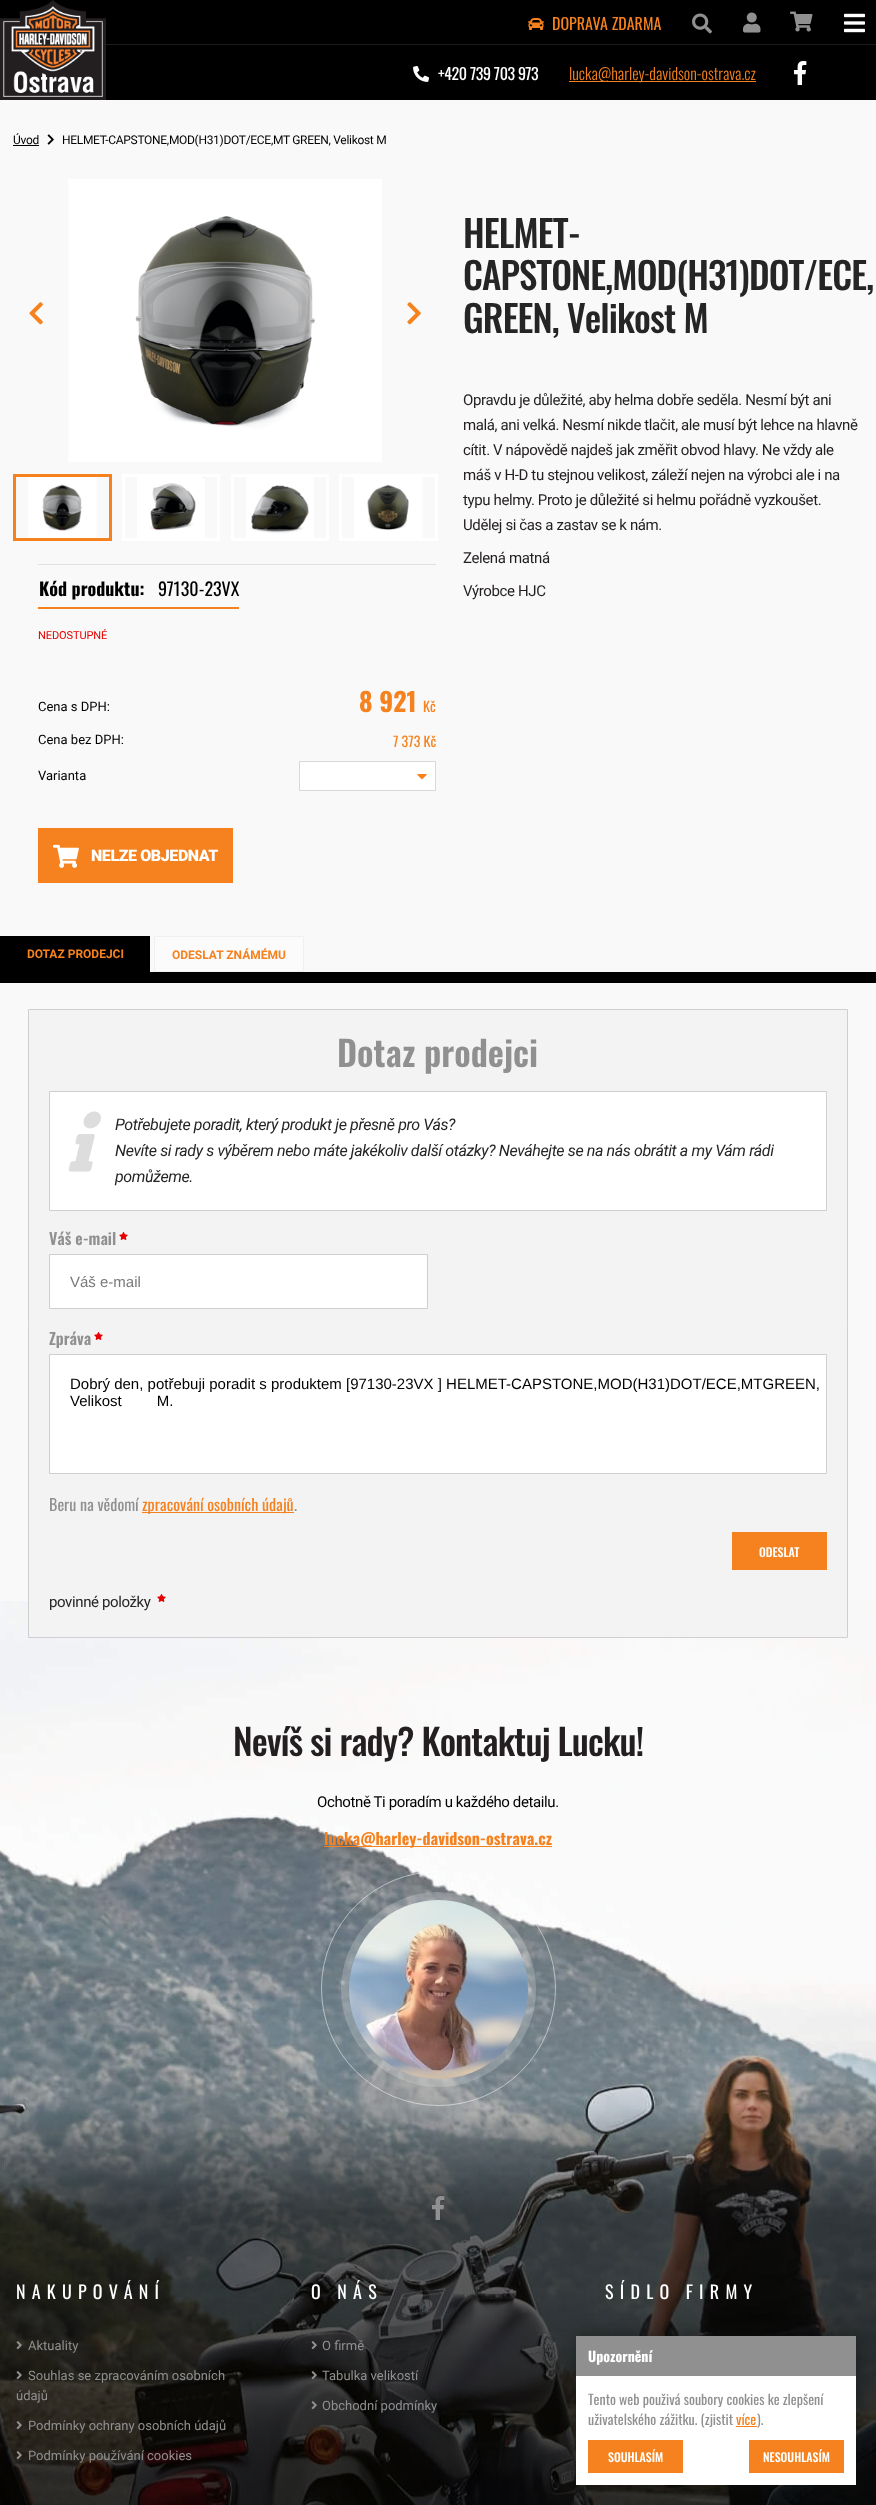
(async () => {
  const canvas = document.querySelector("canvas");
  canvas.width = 876;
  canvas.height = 2505;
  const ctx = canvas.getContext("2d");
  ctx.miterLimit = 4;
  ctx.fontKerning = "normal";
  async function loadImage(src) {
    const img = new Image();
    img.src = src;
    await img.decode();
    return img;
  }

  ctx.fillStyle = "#f8f9f8";
  ctx.fillRect(0, 0, 876, 2505);
  ctx.drawImage(await loadImage("img/1.png"), 0, 1601, 876, 904);
  ctx.fillStyle = "#000000";
  ctx.fillRect(0, 0, 876, 44);
  ctx.drawImage(await loadImage("img/2.png"), 0, 0, 106, 100);
  ctx.drawImage(await loadImage("img/3.png"), 528, 18, 16, 12);
  ctx.drawImage(await loadImage("img/4.png"), 692, 13, 20, 21);
  ctx.drawImage(await loadImage("img/5.png"), 743, 12, 18, 21);
  ctx.drawImage(await loadImage("img/6.png"), 790, 11, 23, 21);
  ctx.drawImage(await loadImage("img/7.png"), 844, 13, 21, 20);
  ctx.fillRect(106, 45, 770, 55);
  ctx.fillStyle = "#1d1d1d";
  ctx.fillRect(106, 44, 770, 1);
  ctx.drawImage(await loadImage("img/8.png"), 413, 66, 16, 16);
  ctx.fillStyle = "#f5821f";
  ctx.fillRect(569, 81, 187, 1);
  ctx.drawImage(await loadImage("img/9.png"), 794, 61, 13, 24);
  ctx.fillStyle = "#000000";
  ctx.fillRect(13, 145, 26, 1);
  ctx.drawImage(await loadImage("img/10.png"), 47, 134, 7, 11);
  ctx.drawImage(await loadImage("img/11.png"), 29, 302, 14, 23);
  ctx.drawImage(await loadImage("img/12.png"), 68, 179, 314, 283);
  ctx.drawImage(await loadImage("img/13.png"), 407, 302, 14, 23);
  ctx.strokeStyle = "#f5821f";
  ctx.lineWidth = 3;
  ctx.strokeRect(14.5, 475.5, 96, 64);
  ctx.drawImage(await loadImage("img/14.png"), 28, 477, 69, 61);
  ctx.strokeStyle = "#ffffff";
  ctx.strokeRect(123.5, 475.5, 95, 64);
  ctx.drawImage(await loadImage("img/15.png"), 137, 477, 68, 61);
  ctx.strokeRect(232.5, 475.5, 95, 64);
  ctx.drawImage(await loadImage("img/16.png"), 246, 477, 68, 61);
  ctx.strokeRect(340.5, 475.5, 96, 64);
  ctx.drawImage(await loadImage("img/17.png"), 354, 477, 69, 61);
  ctx.fillStyle = "#dfe0df";
  ctx.fillRect(38, 564, 398, 1);
  ctx.fillStyle = "#f5821f";
  ctx.fillRect(38, 607, 201, 2);
  ctx.fillStyle = "#ffffff";
  ctx.beginPath();
  ctx.rect(299.5, 761.5, 136, 29);
  ctx.fill();
  ctx.strokeStyle = "#d9d9d9";
  ctx.lineWidth = 1;
  ctx.stroke();
  ctx.drawImage(await loadImage("img/18.png"), 417, 774, 10, 6);
  ctx.fillStyle = "#f5821f";
  ctx.fillRect(38, 828, 195, 55);
  ctx.drawImage(await loadImage("img/19.png"), 53, 844, 26, 24);
  ctx.fillStyle = "#000000";
  ctx.fillRect(0, 972, 876, 11);
  ctx.fillRect(0, 936, 150, 36);
  ctx.fillStyle = "#fbfbfb";
  ctx.beginPath();
  ctx.rect(154.5, 936.5, 149, 35);
  ctx.fill();
  ctx.strokeStyle = "#f0f0f0";
  ctx.stroke();
  ctx.fillStyle = "#f3f3f3";
  ctx.beginPath();
  ctx.rect(28.5, 1009.5, 819, 628);
  ctx.fill();
  ctx.strokeStyle = "#cfcfcf";
  ctx.stroke();
  ctx.fillStyle = "#ffffff";
  ctx.beginPath();
  ctx.rect(49.5, 1091.5, 777, 119);
  ctx.fill();
  ctx.stroke();
  ctx.drawImage(await loadImage("img/20.png"), 68, 1111, 33, 61);
  ctx.drawImage(await loadImage("img/21.png"), 119, 1232, 9, 8);
  ctx.beginPath();
  ctx.rect(49.5, 1254.5, 378, 54);
  ctx.fill();
  ctx.stroke();
  ctx.drawImage(await loadImage("img/21.png"), 94, 1332, 9, 8);
  ctx.beginPath();
  ctx.rect(49.5, 1354.5, 777, 119);
  ctx.fill();
  ctx.stroke();
  ctx.fillStyle = "#f5821f";
  ctx.fillRect(142, 1512, 152, 1);
  ctx.fillRect(732, 1532, 95, 38);
  ctx.drawImage(await loadImage("img/21.png"), 157, 1594, 9, 8);
  ctx.fillRect(324, 1846, 228, 1);
  ctx.beginPath();
  ctx.arc(438.5, 1988.5, 117, 0, Math.PI * 2);
  ctx.strokeStyle = "rgba(255, 255, 255, 0.5)";
  ctx.stroke();
  ctx.fillStyle = "rgba(255, 255, 255, 0.2)";
  ctx.beginPath();
  ctx.arc(438.5, 1989.5, 97.5, 0, Math.PI * 2);
  ctx.fill();
  ctx.drawImage(await loadImage("img/22.png"), 349, 1900, 179, 179);
  ctx.drawImage(await loadImage("img/23.png"), 432, 2196, 13, 24);
  ctx.drawImage(await loadImage("img/24.png"), 16, 2341, 6, 9);
  ctx.drawImage(await loadImage("img/25.png"), 16, 2371, 6, 9);
  ctx.drawImage(await loadImage("img/26.png"), 16, 2421, 6, 9);
  ctx.drawImage(await loadImage("img/27.png"), 16, 2451, 6, 9);
  ctx.drawImage(await loadImage("img/28.png"), 311, 2341, 6, 9);
  ctx.drawImage(await loadImage("img/29.png"), 311, 2371, 6, 9);
  ctx.drawImage(await loadImage("img/30.png"), 311, 2401, 6, 9);
  ctx.fillStyle = "rgba(16, 16, 16, 0.6)";
  ctx.filter = "blur(10px)";
  ctx.beginPath();
  ctx.roundRect(576, 2336, 280, 149, 5);
  ctx.fill();
  ctx.filter = "none";
  for (const [x, y, w, h, color] of [
    [576, 2336, 280, 40, "#909090"],
    [576, 2376, 280, 109, "#ffffff"],
    [736, 2426, 21, 1, "#f5821f"],
    [588, 2440, 95, 33, "#f5821f"],
    [749, 2440, 95, 33, "#f5821f"],
  ]) {
    ctx.fillStyle = color;
    ctx.fillRect(x, y, w, h);
  }
  ctx.font = "16px Oswald";
  ctx.fillText("DOPRAVA ZDARMA", 552, 30);
  ctx.letterSpacing = "-0.4px";
  ctx.fillStyle = "#ffffff";
  ctx.fillText("+420 739 703 973", 438, 80);
  ctx.letterSpacing = "0px";
  ctx.font = "300 16px Oswald";
  ctx.fillStyle = "#f5821f";
  ctx.fillText("lucka@harley-davidson-ostrava.cz", 569, 80);
  ctx.letterSpacing = "-0.3px";
  ctx.font = "12px Roboto";
  ctx.fillStyle = "#000000";
  ctx.fillText("Úvod", 13, 144);
  ctx.fillText("HELMET-CAPSTONE,MOD(H31)DOT/ECE,MT GREEN, Velikost M", 62, 144);
  ctx.letterSpacing = "-0.9px";
  ctx.font = "500 37px Oswald";
  ctx.fillStyle = "#252525";
  for (const [text, x, y] of [
    ["HELMET-", 463, 248],
    ["CAPSTONE,MOD(H31)DOT/ECE,", 463, 290],
    ["GREEN, Velikost M", 463, 333],
  ]) {
    ctx.fillText(text, x, y);
  }
  ctx.letterSpacing = "-0.38px";
  ctx.font = "15px Roboto";
  ctx.fillStyle = "#231f20";
  for (const [text, x, y] of [
    ["Opravdu je důležité, aby helma dobře seděla. Nesmí být ani", 463, 405],
    ["malá, ani velká. Nesmí nikde tlačit, ale musí být lehce na hlavně", 463, 430],
    ["cítit. V nápovědě najdeš jak změřit obvod hlavy. Ne vždy ale", 463, 455],
    ["máš v H-D tu stejnou velikost, záleží nejen na výrobci ale i na", 463, 480],
    ["typu helmy. Proto je důležité si helmu pořádně vyzkoušet.", 463, 505],
    ["Udělej si čas a zastav se k nám.", 463, 530],
    ["Zelená matná", 463, 563],
    ["Výrobce HJC", 463, 596],
  ]) {
    ctx.fillText(text, x, y);
  }
  ctx.letterSpacing = "0px";
  ctx.font = "bold 18px Oswald";
  ctx.fillStyle = "#000000";
  ctx.fillText("Kód produktu:", 39, 596);
  ctx.font = "18px Oswald";
  ctx.fillText("97130-23VX", 158, 596);
  ctx.letterSpacing = "-0.1px";
  ctx.font = "11px Roboto";
  ctx.fillStyle = "#e60002";
  ctx.fillText("NEDOSTUPNÉ", 38, 639);
  ctx.letterSpacing = "0px";
  ctx.font = "13px Roboto";
  ctx.fillStyle = "#000000";
  ctx.fillText("Cena s DPH:", 38, 711);
  ctx.font = "bold 26px Oswald";
  ctx.fillStyle = "#f5821f";
  ctx.fillText("8 921", 359, 712);
  ctx.font = "14px Oswald";
  ctx.fillText("Kč", 423, 712);
  ctx.font = "13px Roboto";
  ctx.fillStyle = "#000000";
  ctx.fillText("Cena bez DPH:", 38, 744);
  ctx.font = "14px Oswald";
  ctx.fillStyle = "#f5821f";
  ctx.fillText("7 373 Kč", 393, 747);
  ctx.font = "13px Roboto";
  ctx.fillStyle = "#000000";
  ctx.fillText("Varianta", 38, 780);
  ctx.letterSpacing = "-0.4px";
  ctx.font = "900 16px Roboto";
  ctx.fillStyle = "#ffffff";
  ctx.fillText("NELZE OBJEDNAT", 91, 861);
  ctx.letterSpacing = "0px";
  ctx.font = "bold 12px Roboto";
  ctx.fillStyle = "#f5821f";
  ctx.fillText("DOTAZ PRODEJCI", 27, 958);
  ctx.fillText("ODESLAT ZNÁMÉMU", 172, 959);
  ctx.font = "600 35px Oswald";
  ctx.fillStyle = "#909090";
  ctx.fillText("Dotaz prodejci", 337, 1067);
  ctx.letterSpacing = "-0.38px";
  ctx.font = "italic 16px Roboto";
  ctx.fillStyle = "#252525";
  for (const [text, x, y] of [
    ["Potřebujete poradit, který produkt je přesně pro Vás?", 115, 1130],
    ["Nevíte si rady s výběrem nebo máte jakékoliv další otázky? Neváhejte se na nás obrátit a my Vám rádi", 115, 1156],
    ["pomůžeme.", 115, 1182],
  ]) {
    ctx.fillText(text, x, y);
  }
  ctx.letterSpacing = "0px";
  ctx.font = "600 16px Oswald";
  ctx.fillStyle = "#909090";
  ctx.fillText("Váš e-mail", 49, 1245);
  ctx.font = "15px Liberation Sans";
  ctx.fillStyle = "#797979";
  ctx.fillText("Váš e-mail", 70, 1287);
  ctx.font = "600 16px Oswald";
  ctx.fillStyle = "#909090";
  ctx.fillText("Zpráva", 49, 1345);
  ctx.font = "15px Liberation Sans";
  ctx.fillStyle = "#000000";
  ctx.fillText("Dobrý den, potřebuji poradit s produktem [97130-23VX ] HELMET-CAPSTONE,MOD(H31)DOT/ECE,MTGREEN,", 70, 1389);
  ctx.wordSpacing = "31px";
  ctx.fillText("Velikost M.", 70, 1406);
  ctx.wordSpacing = "0px";
  ctx.font = "16px Oswald";
  ctx.fillStyle = "#909090";
  ctx.fillText("Beru na vědomí", 49, 1511);
  ctx.fillStyle = "#f5821f";
  ctx.fillText("zpracování osobních údajů", 142, 1511);
  ctx.fillStyle = "#909090";
  ctx.fillText(".", 294, 1511);
  ctx.font = "500 12px Oswald";
  ctx.fillStyle = "#ffffff";
  ctx.fillText("ODESLAT", 759, 1557);
  ctx.letterSpacing = "-0.38px";
  ctx.font = "15px Roboto";
  ctx.fillStyle = "#252525";
  ctx.fillText("povinné položky", 49, 1607);
  ctx.letterSpacing = "-0.9px";
  ctx.font = "500 36px Oswald";
  ctx.fillStyle = "#231f20";
  ctx.fillText("Nevíš si rady? Kontaktuj Lucku!", 233, 1756);
  ctx.letterSpacing = "-0.38px";
  ctx.font = "15px Roboto";
  ctx.fillStyle = "#000000";
  ctx.fillText("Ochotně Ti poradím u každého detailu.", 317, 1807);
  ctx.letterSpacing = "0px";
  ctx.font = "bold 16px Oswald";
  ctx.fillStyle = "#f5821f";
  ctx.fillText("lucka@harley-davidson-ostrava.cz", 324, 1845);
  ctx.letterSpacing = "6.25px";
  ctx.font = "18px Oswald";
  ctx.fillStyle = "#ffffff";
  ctx.fillText("NAKUPOVÁNÍ", 16, 2299);
  ctx.letterSpacing = "0px";
  ctx.font = "13px Roboto";
  ctx.fillStyle = "#909090";
  for (const [text, x, y] of [
    ["Aktuality", 28, 2350],
    ["Souhlas se zpracováním osobních", 28, 2380],
    ["údajů", 16, 2400],
    ["Podmínky ochrany osobních údajů", 28, 2430],
    ["Podmínky používání cookies", 28, 2460],
  ]) {
    ctx.fillText(text, x, y);
  }
  ctx.letterSpacing = "6.25px";
  ctx.font = "18px Oswald";
  ctx.fillStyle = "#ffffff";
  ctx.fillText("O NÁS", 311, 2299);
  ctx.letterSpacing = "0px";
  ctx.font = "13px Roboto";
  ctx.fillStyle = "#909090";
  for (const [text, x, y] of [
    ["O firmě", 322, 2350],
    ["Tabulka velikostí", 322, 2380],
    ["Obchodní podmínky", 322, 2410],
  ]) {
    ctx.fillText(text, x, y);
  }
  ctx.letterSpacing = "6.25px";
  ctx.font = "18px Oswald";
  ctx.fillStyle = "#ffffff";
  ctx.fillText("SÍDLO FIRMY", 605, 2299);
  ctx.letterSpacing = "0px";
  ctx.font = "bold 14px Oswald";
  ctx.fillText("Upozornění", 588, 2362);
  ctx.font = "14px Oswald";
  ctx.fillStyle = "#909090";
  ctx.fillText("Tento web použivá soubory cookies ke zlepšení", 588, 2405);
  ctx.fillText("uživatelského zážitku. (zjistit", 588, 2425);
  ctx.fillStyle = "#f5821f";
  ctx.fillText("více", 736, 2425);
  ctx.fillStyle = "#909090";
  ctx.fillText(").", 757, 2425);
  ctx.font = "500 12px Oswald";
  ctx.fillStyle = "#ffffff";
  ctx.fillText("SOUHLASÍM", 608, 2462);
  ctx.fillText("NESOUHLASÍM", 763, 2462);
})();
